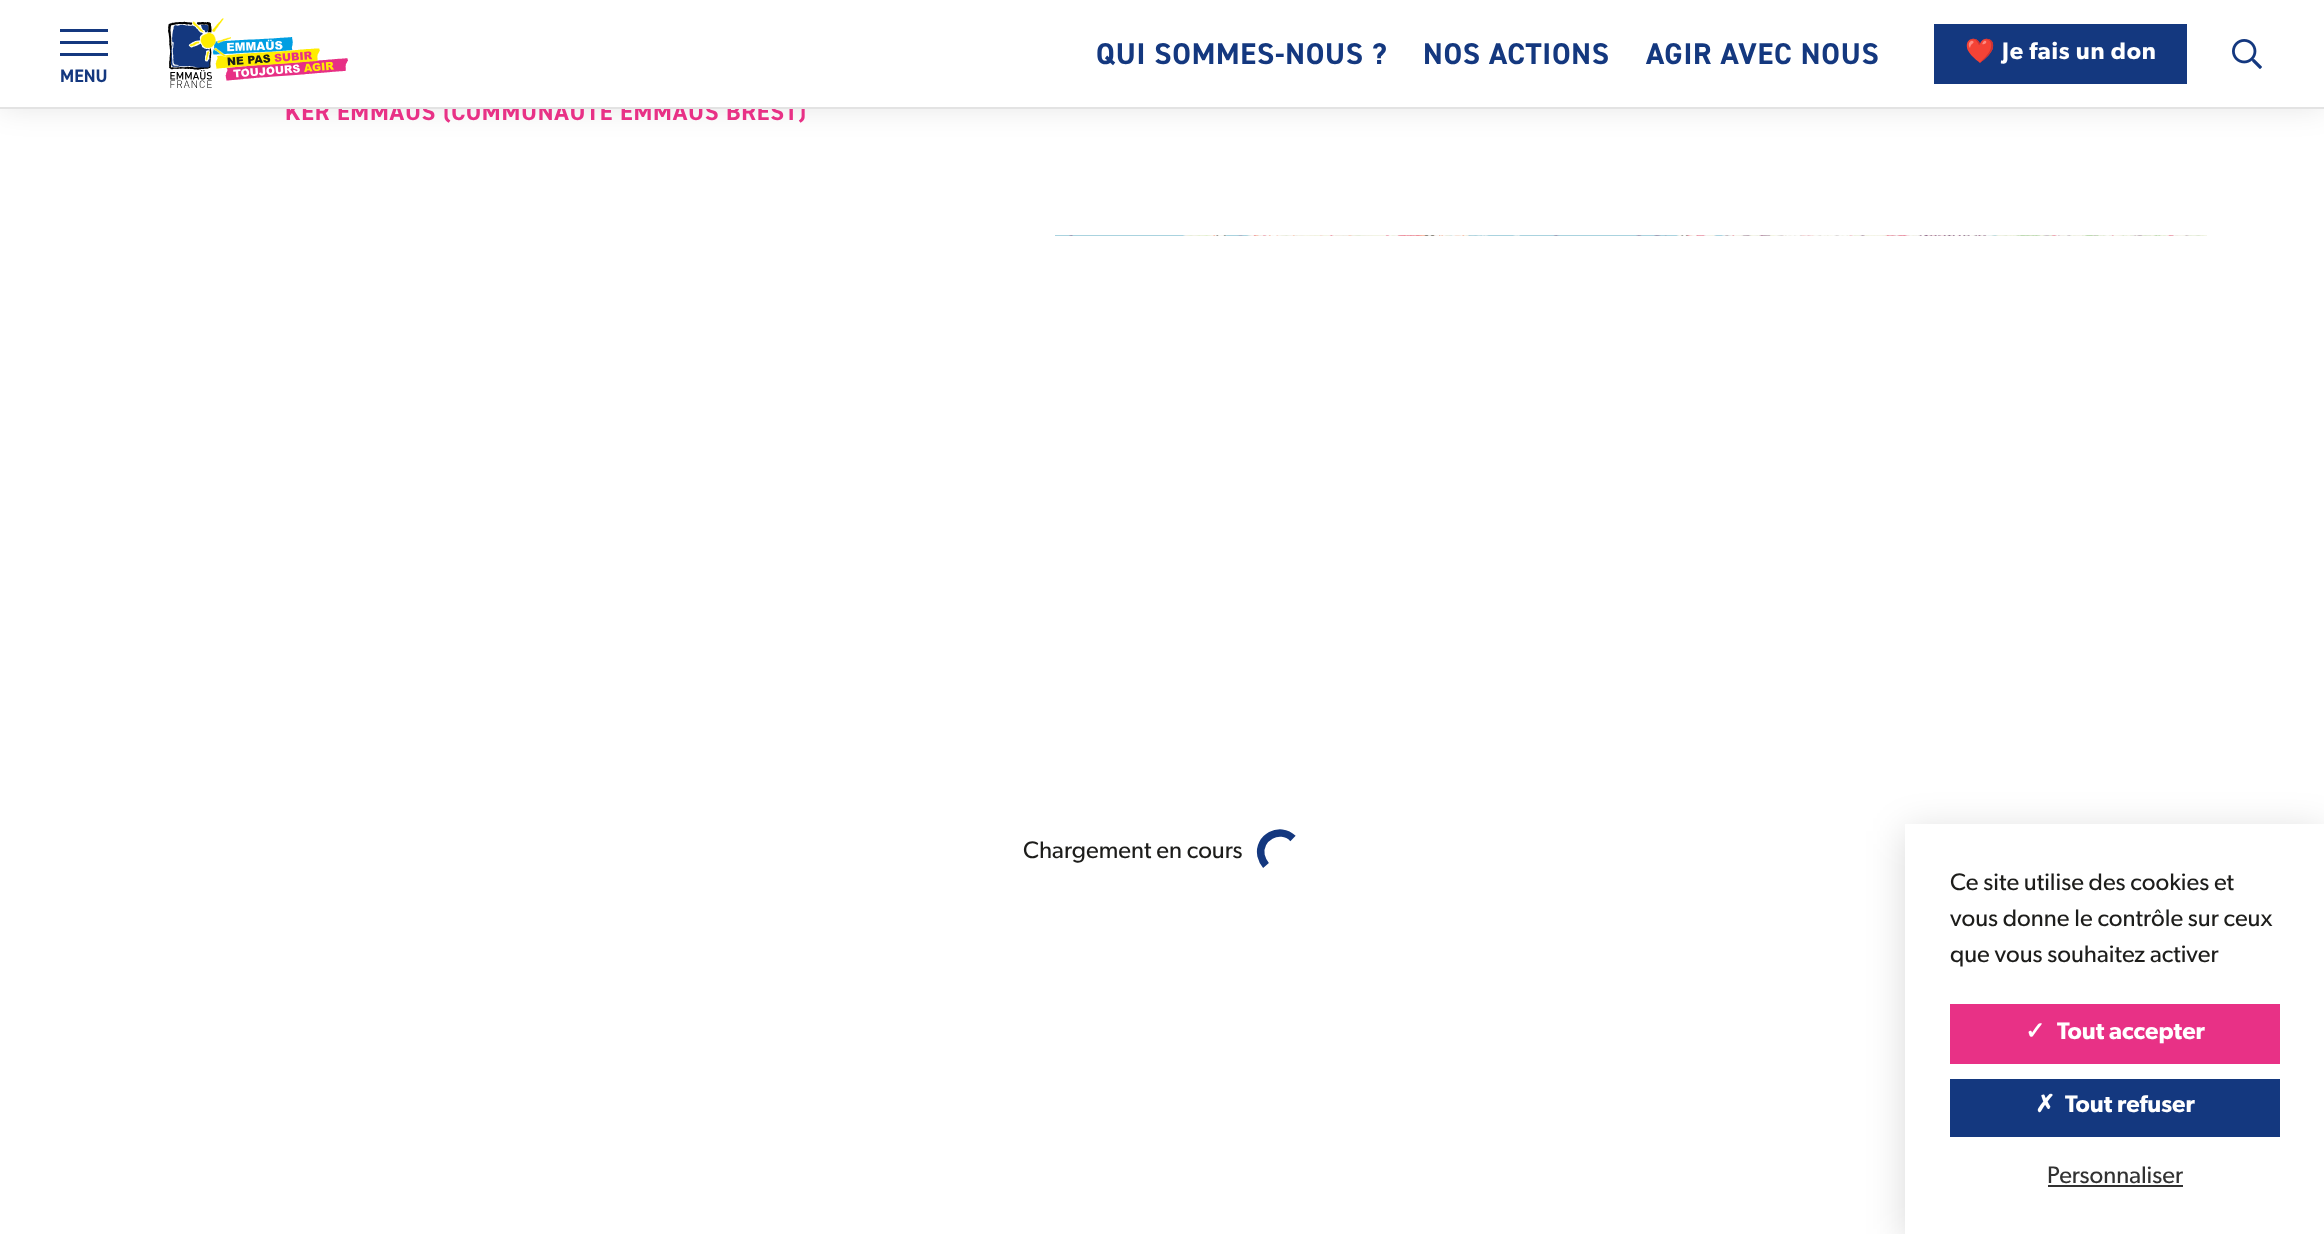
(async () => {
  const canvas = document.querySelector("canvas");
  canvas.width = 2324;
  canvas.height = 1234;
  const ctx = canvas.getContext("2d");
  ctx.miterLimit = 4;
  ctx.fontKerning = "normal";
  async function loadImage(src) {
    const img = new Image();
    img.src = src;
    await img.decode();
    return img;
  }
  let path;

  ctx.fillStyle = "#ffffff";
  ctx.fillRect(0, 0, 2324, 1234);
  ctx.fillStyle = "rgba(0, 0, 0, 0.1)";
  ctx.filter = "blur(15px)";
  ctx.beginPath();
  ctx.rect(0, 0, 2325, 108);
  ctx.fill();
  ctx.filter = "none";
  ctx.drawImage(await loadImage("img/3.png"), 1055, 235, 384, 1);
  ctx.drawImage(await loadImage("img/4.png"), 1439, 235, 384, 1);
  ctx.drawImage(await loadImage("img/5.png"), 1823, 235, 384, 1);
  path = new Path2D("M1266 865.5C1263.5 862.5 1262 859.5 1261 855.5C1257.5 837.5 1280 825.5 1293 838.5");
  ctx.strokeStyle = "#14387f";
  ctx.lineWidth = 7.5;
  ctx.stroke(path);
  ctx.save();
  path = new Path2D("M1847 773H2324V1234H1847ZM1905 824H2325V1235H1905Z");
  ctx.clip(path, "evenodd");
  ctx.fillStyle = "rgba(0, 0, 0, 0.15)";
  ctx.filter = "blur(19px)";
  ctx.beginPath();
  ctx.rect(1905, 831, 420, 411);
  ctx.fill();
  ctx.filter = "none";
  ctx.restore();
  for (const [x, y, w, h, color] of [
    [1950, 1004, 330, 60, "#e83186"],
    [1950, 1079, 330, 58, "#14387f"],
    [2048, 1185, 135, 2, "#323232"],
  ]) {
    ctx.fillStyle = color;
    ctx.fillRect(x, y, w, h);
  }
  ctx.letterSpacing = "0.75px";
  ctx.font = "bold 24px 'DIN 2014'";
  ctx.fillStyle = "#e83186";
  ctx.fillText("KER EMMAÜS (COMMUNAUTÉ EMMAÜS BREST)", 285, 120);
  for (const [x, y, w, h, color] of [
    [0, 0, 2324, 107, "#ffffff"],
    [60, 53, 48, 3, "#14387f"],
    [60, 29, 48, 3, "#14387f"],
    [60, 41, 48, 3, "#14387f"],
  ]) {
    ctx.fillStyle = color;
    ctx.fillRect(x, y, w, h);
  }
  ctx.drawImage(await loadImage("img/2.png"), 2232, 39, 30, 30);
  ctx.fillRect(1934, 24, 253, 60);
  ctx.font = "600 24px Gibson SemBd";
  ctx.fillStyle = "#ffffff";
  ctx.fillText("Je fais un don", 2002, 59);
  ctx.font = "bold 24px Noto Color Emoji";
  ctx.fillText("❤️", 1965, 59);
  ctx.font = "bold 30px 'DIN 2014'";
  ctx.fillStyle = "#14387f";
  for (const [text, x, y] of [
    ["AGIR AVEC NOUS", 1646, 64],
    ["NOS ACTIONS", 1423, 64],
    ["QUI SOMMES-NOUS ?", 1096, 64],
  ]) {
    ctx.fillText(text, x, y);
  }
  ctx.drawImage(await loadImage("img/1.png"), 168, 18, 180, 70);
  ctx.letterSpacing = "0px";
  ctx.font = "bold 18px 'DIN 2014'";
  ctx.fillText("MENU", 60, 82);
  ctx.fillStyle = "#e3e3e3";
  ctx.fillRect(0, 107, 2324, 2);
  ctx.font = "24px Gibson";
  ctx.fillStyle = "#1d1d1b";
  for (const [text, x, y] of [
    ["Chargement en cours", 1023, 858],
    ["Ce site utilise des cookies et", 1950, 890],
    ["vous donne le contrôle sur ceux", 1950, 926],
    ["que vous souhaitez activer", 1950, 962],
  ]) {
    ctx.fillText(text, x, y);
  }
  ctx.font = "bold 24px DejaVu Sans";
  ctx.fillStyle = "#ffffff";
  ctx.fillText("✓", 2025, 1039);
  ctx.font = "600 24px Gibson SemBd";
  ctx.fillText("Tout accepter", 2057, 1039);
  ctx.font = "bold 24px DejaVu Sans";
  ctx.fillText("✗", 2035, 1112);
  ctx.font = "600 24px Gibson SemBd";
  ctx.fillText("Tout refuser", 2065, 1112);
  ctx.font = "24px Gibson";
  ctx.fillStyle = "#323232";
  ctx.fillText("Personnaliser", 2047, 1183);
})();
